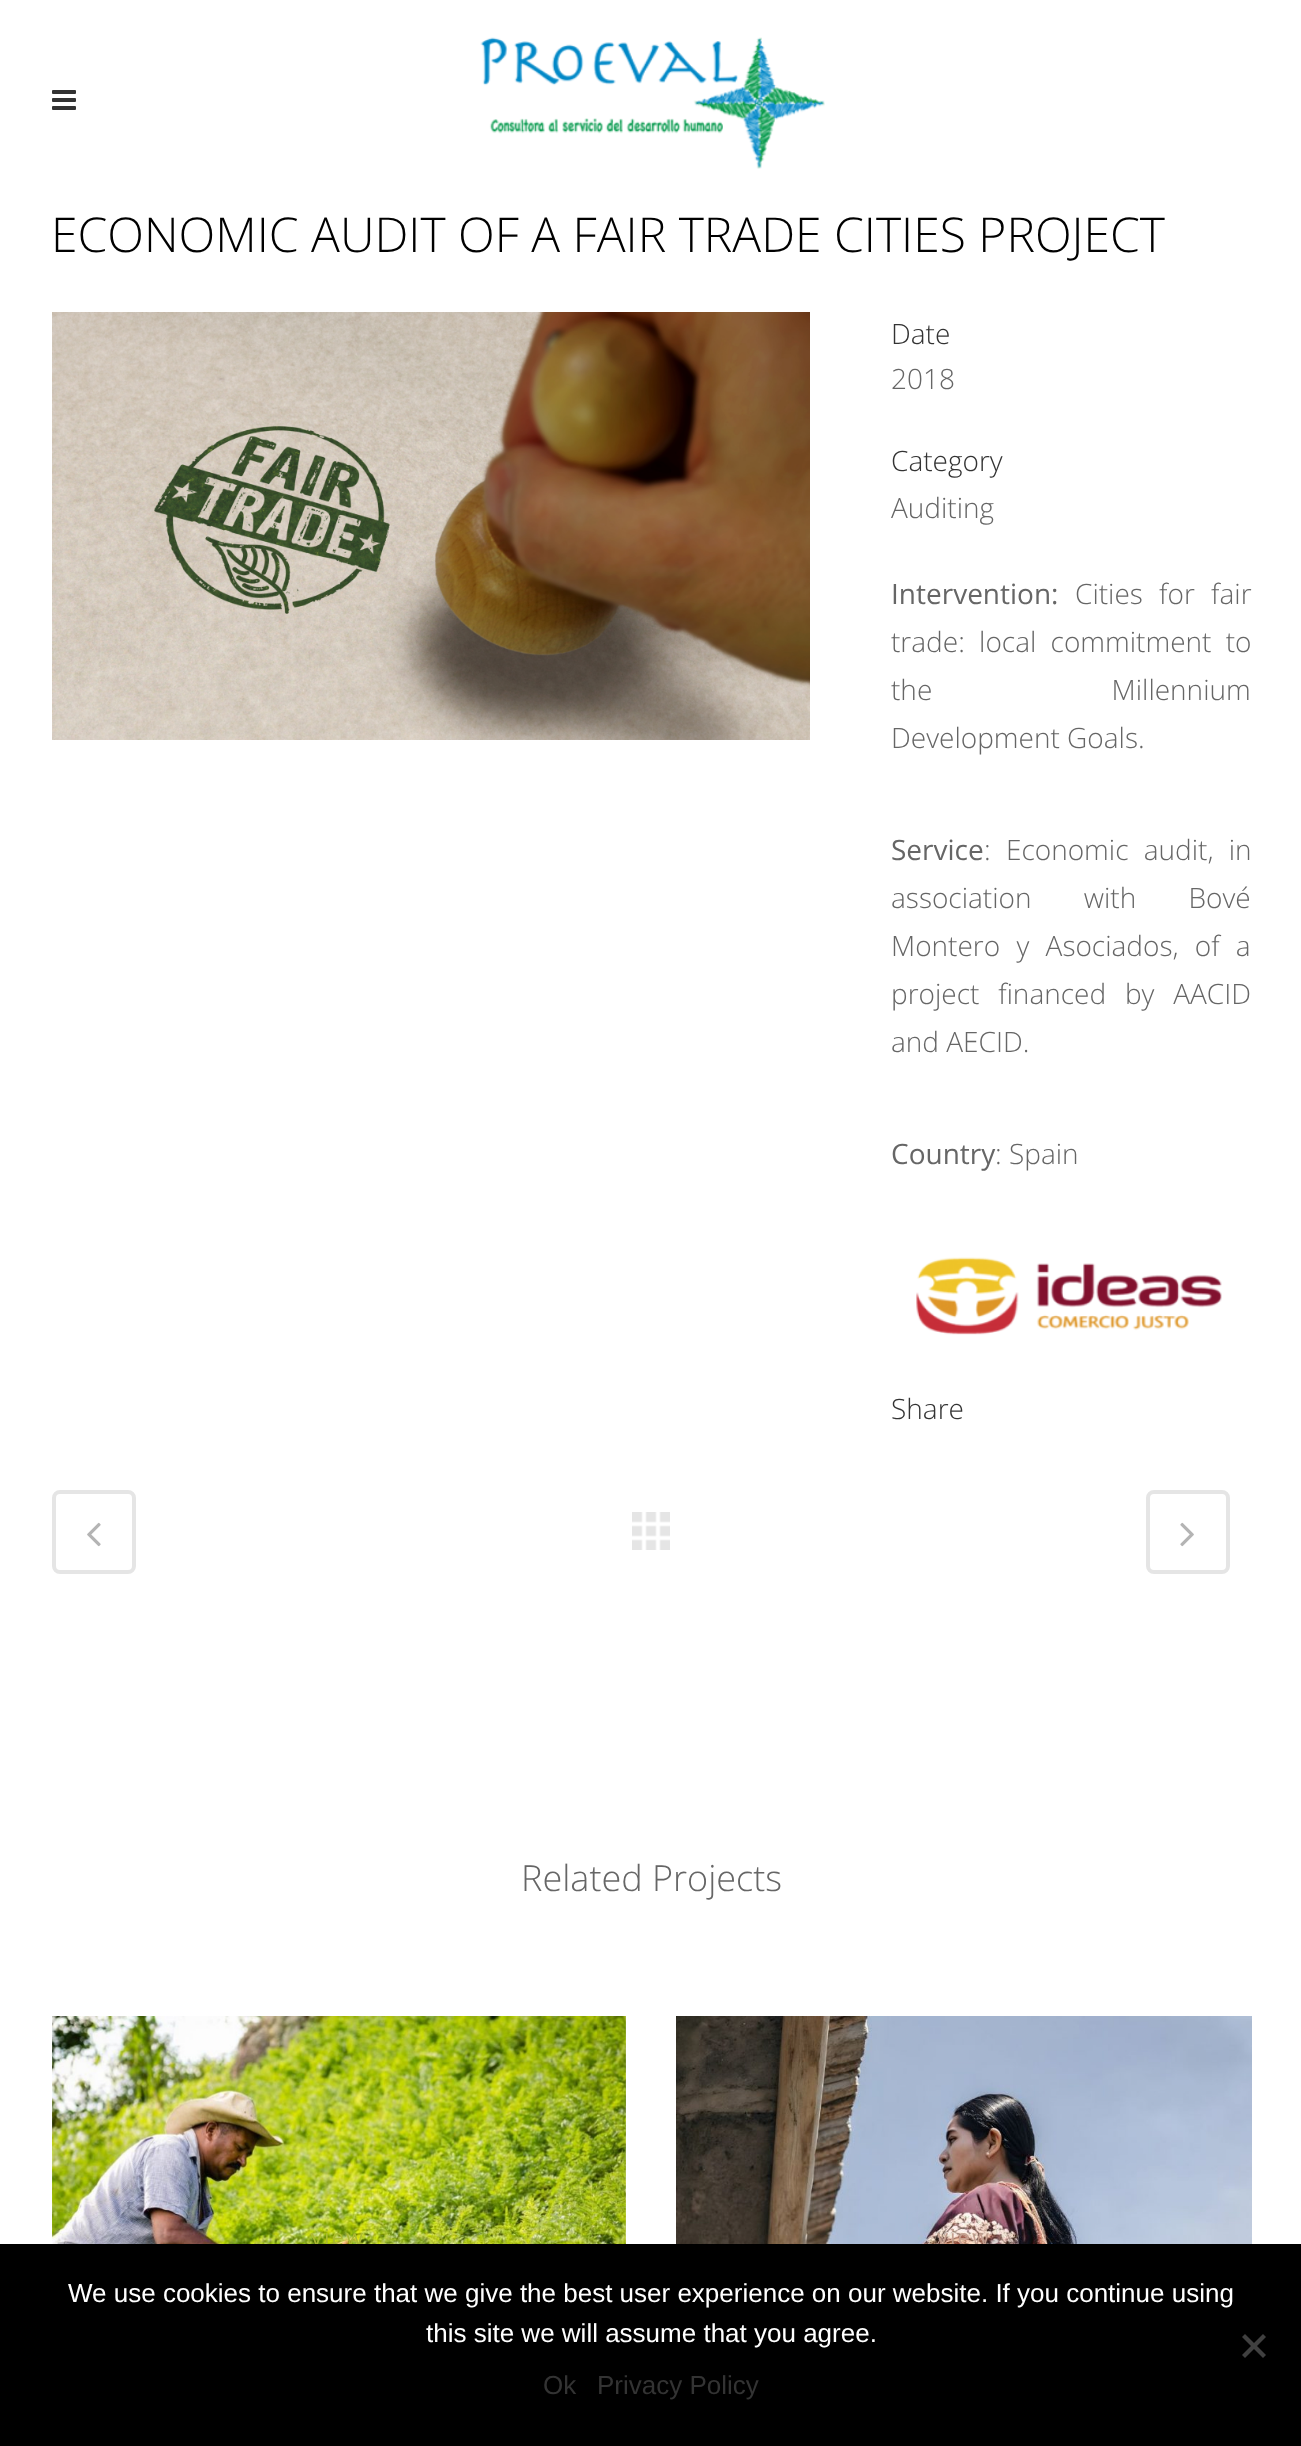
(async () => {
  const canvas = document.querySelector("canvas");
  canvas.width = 1301;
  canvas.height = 2446;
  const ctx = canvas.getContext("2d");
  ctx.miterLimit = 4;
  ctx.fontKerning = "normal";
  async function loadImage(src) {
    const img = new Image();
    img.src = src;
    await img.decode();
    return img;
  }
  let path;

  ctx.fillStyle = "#ffffff";
  ctx.fillRect(0, 0, 1301, 2446);
  ctx.drawImage(await loadImage("img/1.png"), 52, 90, 24, 20);
  ctx.drawImage(await loadImage("img/2.png"), 480, 37, 345, 132);
  ctx.drawImage(await loadImage("img/3.png"), 52, 312, 758, 428);
  ctx.drawImage(await loadImage("img/4.png"), 916, 1257, 306, 78);
  ctx.beginPath();
  ctx.roundRect(54, 1492, 80, 80, 6);
  ctx.strokeStyle = "#e5e5e5";
  ctx.lineWidth = 4;
  ctx.stroke();
  ctx.drawImage(await loadImage("img/5.png"), 87, 1522, 14, 25);
  ctx.drawImage(await loadImage("img/6.png"), 632, 1512, 38, 38);
  ctx.beginPath();
  ctx.roundRect(1148, 1492, 80, 80, 6);
  ctx.stroke();
  ctx.drawImage(await loadImage("img/7.png"), 1180, 1522, 14, 25);
  ctx.drawImage(await loadImage("img/8.png"), 52, 2016, 574, 228);
  ctx.drawImage(await loadImage("img/9.png"), 676, 2016, 576, 228);
  ctx.font = "300 48px Open Sans";
  ctx.fillStyle = "#000000";
  ctx.fillText("ECONOMIC AUDIT OF A FAIR TRADE CITIES PROJECT", 51, 252);
  ctx.font = "300 28px Open Sans";
  ctx.fillStyle = "#333333";
  ctx.fillText("Date", 891, 344);
  ctx.fillStyle = "#666666";
  ctx.fillText("2018", 891, 389);
  ctx.fillStyle = "#333333";
  ctx.fillText("Category", 891, 471);
  ctx.fillStyle = "#666666";
  ctx.fillText("Auditing", 891, 518);
  ctx.font = "28px Open Sans";
  ctx.fillText("Intervention:", 891, 604);
  ctx.wordSpacing = "9px";
  ctx.font = "300 28px Open Sans";
  ctx.fillText("Cities for fair", 1075, 604);
  ctx.wordSpacing = "7px";
  ctx.fillText("trade: local commitment to", 891, 652);
  ctx.wordSpacing = "172px";
  ctx.fillText("the Millennium", 891, 700);
  ctx.wordSpacing = "0px";
  ctx.fillText("Development Goals.", 891, 748);
  ctx.font = "28px Open Sans";
  ctx.fillText("Service", 891, 860);
  ctx.wordSpacing = "8px";
  ctx.font = "300 28px Open Sans";
  ctx.fillText(": Economic audit, in", 984, 860);
  ctx.wordSpacing = "45px";
  ctx.fillText("association with Bové", 891, 908);
  ctx.wordSpacing = "9px";
  ctx.fillText("Montero y Asociados, of a", 891, 956);
  ctx.wordSpacing = "11.5px";
  ctx.fillText("project financed by AACID", 891, 1004);
  ctx.wordSpacing = "0px";
  ctx.fillText("and AECID.", 891, 1052);
  ctx.font = "28px Open Sans";
  ctx.fillText("Country", 891, 1164);
  ctx.font = "300 28px Open Sans";
  ctx.fillText(": Spain", 995, 1164);
  ctx.fillStyle = "#333333";
  ctx.fillText("Share", 891, 1419);
  ctx.font = "300 36px Open Sans";
  ctx.fillStyle = "#666666";
  ctx.fillText("Related Projects", 521, 1891);
  ctx.letterSpacing = "2px";
  ctx.font = "22px Open Sans";
  ctx.fillStyle = "#abbb30";
  ctx.fillText("view", 311, 2245);
  ctx.fillStyle = "#c4a090";
  ctx.fillText("view", 937, 2245);
  ctx.fillStyle = "#000000";
  ctx.fillRect(0, 2244, 1301, 202);
  ctx.letterSpacing = "0px";
  ctx.font = "26px Liberation Sans";
  ctx.fillStyle = "#ffffff";
  ctx.fillText("We use cookies to ensure that we give the best user experience on our website. If you continue using", 68, 2302);
  ctx.fillText("this site we will assume that you agree.", 426, 2342);
  ctx.fillStyle = "#404040";
  path = new Path2D("M1263 2334L1266 2337L1245 2358L1242 2355Z");
  ctx.fill(path);
  path = new Path2D("M1242 2337L1245 2334L1266 2355L1263 2358Z");
  ctx.fill(path);
  ctx.fillStyle = "#333333";
  ctx.fillText("Ok", 543, 2394);
  ctx.fillText("Privacy Policy", 597, 2394);
})();
